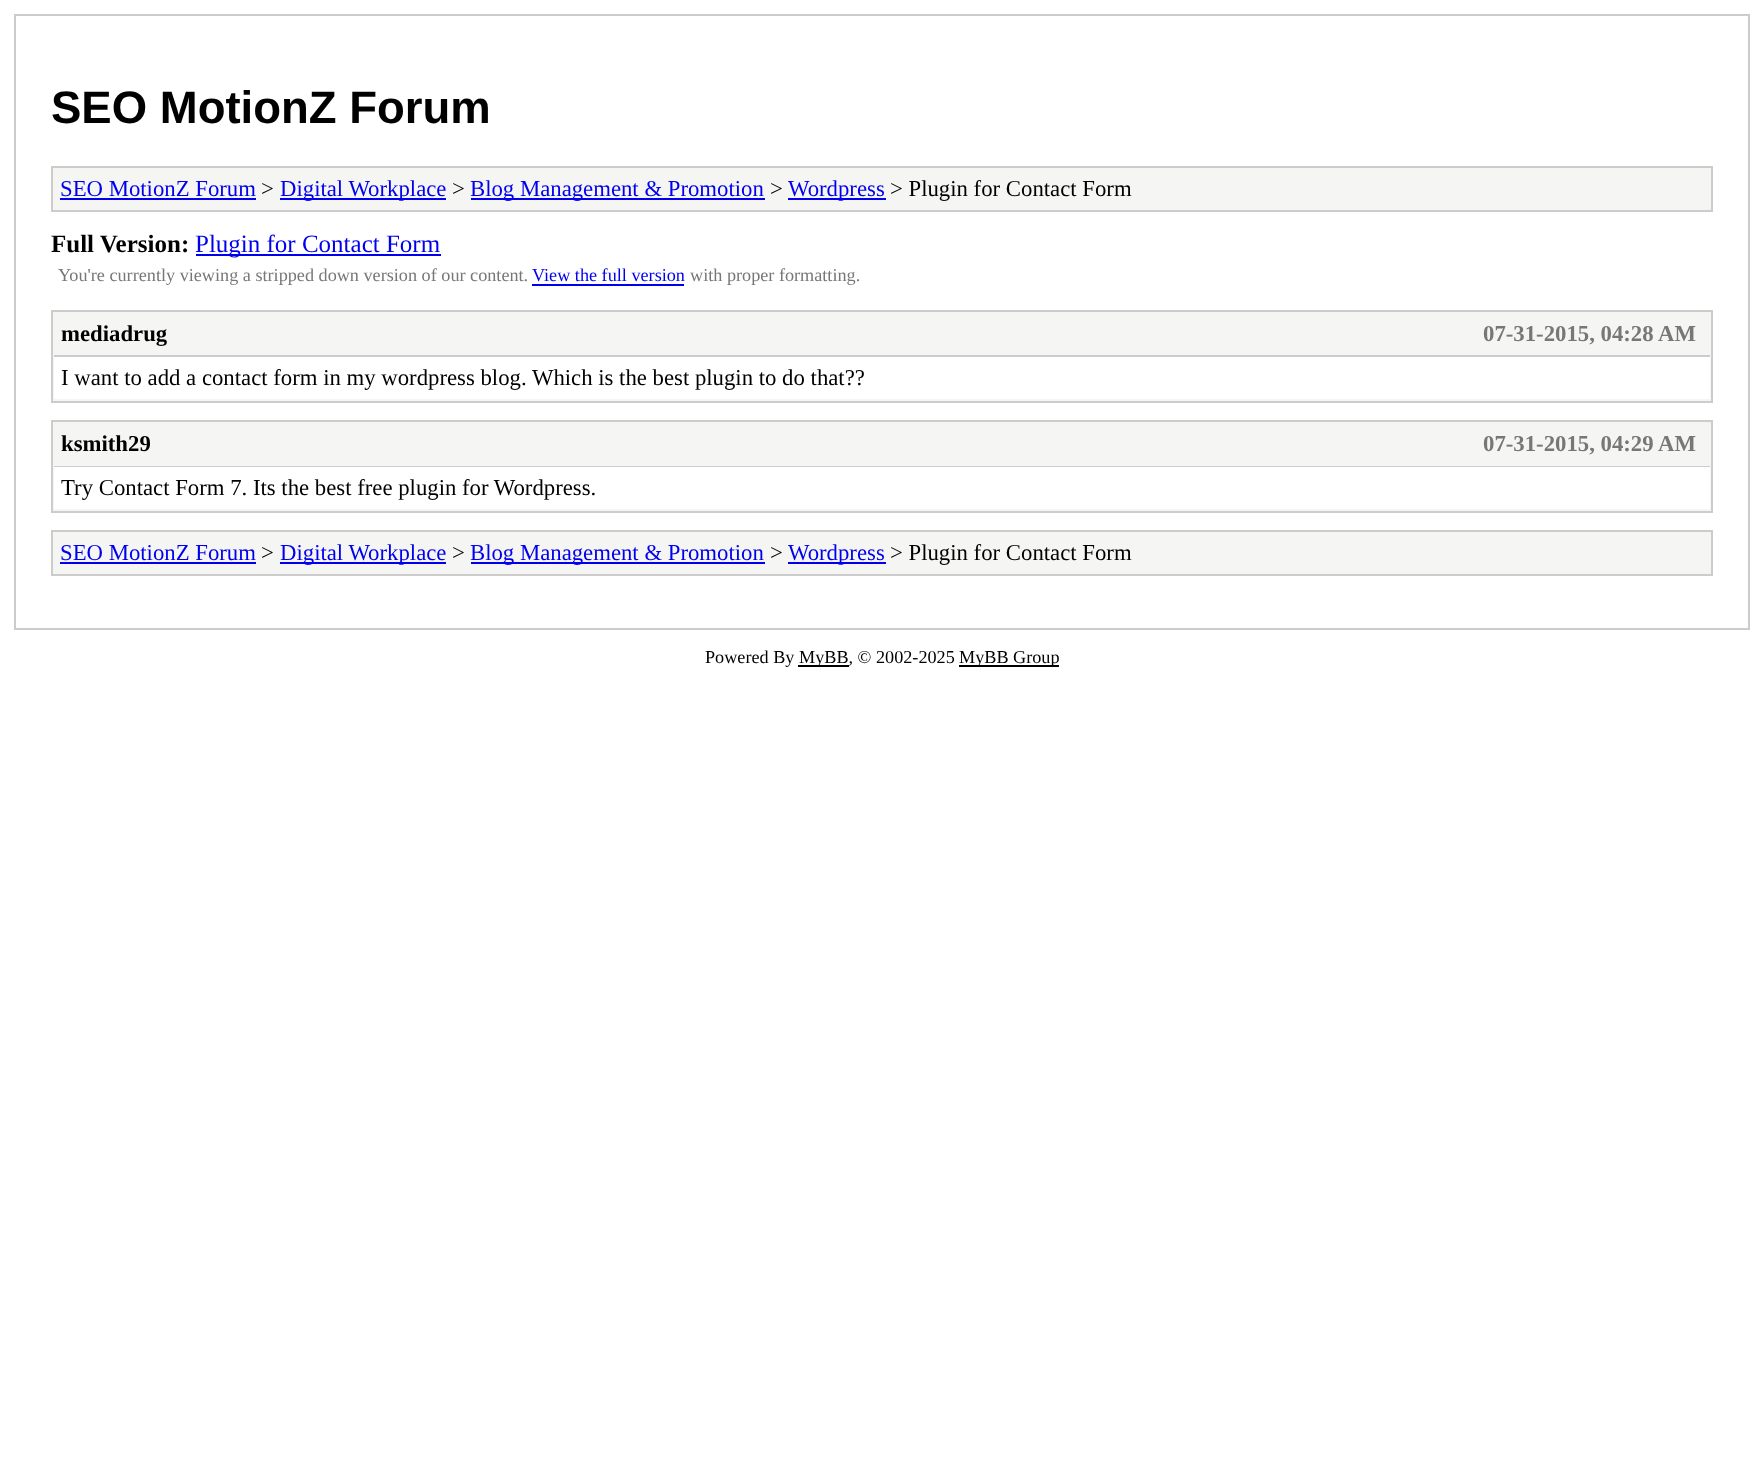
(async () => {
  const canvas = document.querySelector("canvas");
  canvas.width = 1763;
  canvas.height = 1465;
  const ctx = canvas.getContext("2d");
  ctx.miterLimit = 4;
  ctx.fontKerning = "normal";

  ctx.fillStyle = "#ffffff";
  ctx.fillRect(0, 0, 1763, 1465);
  ctx.strokeStyle = "#cccccc";
  ctx.lineWidth = 2;
  ctx.strokeRect(15, 15, 1734, 614);
  ctx.fillStyle = "#f5f5f4";
  ctx.beginPath();
  ctx.rect(52, 167, 1660, 44);
  ctx.fill();
  ctx.stroke();
  for (const [x, y, w, h, color] of [
    [60, 198, 196, 2, "#0000ee"],
    [280, 198, 166, 2, "#0000ee"],
    [471, 198, 294, 2, "#0000ee"],
    [788, 198, 98, 2, "#0000ee"],
    [196, 254, 245, 2, "#0000ee"],
    [532, 284, 152, 2, "#0000ee"],
  ]) {
    ctx.fillStyle = color;
    ctx.fillRect(x, y, w, h);
  }
  ctx.fillStyle = "#f5f5f4";
  ctx.beginPath();
  ctx.rect(52, 311, 1660, 91);
  ctx.fill();
  ctx.stroke();
  ctx.fillStyle = "#cccccc";
  ctx.fillRect(54, 355, 1656, 2);
  ctx.fillStyle = "#ffffff";
  ctx.fillRect(54, 357, 1656, 42);
  ctx.fillStyle = "#f5f5f4";
  ctx.beginPath();
  ctx.rect(52, 421, 1660, 91);
  ctx.fill();
  ctx.stroke();
  ctx.fillStyle = "#cccccc";
  ctx.fillRect(54, 466, 1656, 1);
  ctx.fillStyle = "#ffffff";
  ctx.fillRect(54, 467, 1656, 42);
  ctx.fillStyle = "#f5f5f4";
  ctx.beginPath();
  ctx.rect(52, 531, 1660, 44);
  ctx.fill();
  ctx.stroke();
  for (const [x, y, w, h, color] of [
    [60, 562, 196, 2, "#0000ee"],
    [280, 562, 166, 2, "#0000ee"],
    [471, 562, 294, 2, "#0000ee"],
    [788, 562, 98, 2, "#0000ee"],
    [798, 665, 51, 2, "#000000"],
    [959, 665, 100, 2, "#000000"],
  ]) {
    ctx.fillStyle = color;
    ctx.fillRect(x, y, w, h);
  }
  ctx.font = "bold 45.5px Liberation Sans";
  ctx.fillText("SEO MotionZ Forum", 51, 123);
  ctx.font = "22.75px Liberation Serif";
  ctx.fillStyle = "#0000ee";
  ctx.fillText("SEO MotionZ Forum", 60, 196);
  ctx.fillStyle = "#000000";
  ctx.fillText(">", 261, 196);
  ctx.fillStyle = "#0000ee";
  ctx.fillText("Digital Workplace", 280, 196);
  ctx.fillStyle = "#000000";
  ctx.fillText(">", 452, 196);
  ctx.fillStyle = "#0000ee";
  ctx.fillText("Blog Management & Promotion", 470, 196);
  ctx.fillStyle = "#000000";
  ctx.fillText(">", 770, 196);
  ctx.fillStyle = "#0000ee";
  ctx.fillText("Wordpress", 788, 196);
  ctx.fillStyle = "#000000";
  ctx.fillText("> Plugin for Contact Form", 890, 196);
  ctx.font = "bold 25px Liberation Serif";
  ctx.fillText("Full Version:", 51, 252);
  ctx.font = "25px Liberation Serif";
  ctx.fillStyle = "#0000ee";
  ctx.fillText("Plugin for Contact Form", 195, 252);
  ctx.font = "18.2px Liberation Serif";
  ctx.fillStyle = "#777777";
  ctx.fillText("You're currently viewing a stripped down version of our content.", 58, 281);
  ctx.fillStyle = "#0000ee";
  ctx.fillText("View the full version", 532, 281);
  ctx.fillStyle = "#777777";
  ctx.fillText("with proper formatting.", 690, 281);
  ctx.font = "bold 22.75px Liberation Serif";
  ctx.fillStyle = "#000000";
  ctx.fillText("mediadrug", 61, 341);
  ctx.fillStyle = "#777777";
  ctx.fillText("07-31-2015, 04:28 AM", 1483, 341);
  ctx.font = "22.75px Liberation Serif";
  ctx.fillStyle = "#000000";
  ctx.fillText("I want to add a contact form in my wordpress blog. Which is the best plugin to do that??", 61, 385);
  ctx.font = "bold 22.75px Liberation Serif";
  ctx.fillText("ksmith29", 61, 451);
  ctx.fillStyle = "#777777";
  ctx.fillText("07-31-2015, 04:29 AM", 1483, 451);
  ctx.font = "22.75px Liberation Serif";
  ctx.fillStyle = "#000000";
  ctx.fillText("Try Contact Form 7. Its the best free plugin for Wordpress.", 61, 495);
  ctx.fillStyle = "#0000ee";
  ctx.fillText("SEO MotionZ Forum", 60, 560);
  ctx.fillStyle = "#000000";
  ctx.fillText(">", 261, 560);
  ctx.fillStyle = "#0000ee";
  ctx.fillText("Digital Workplace", 280, 560);
  ctx.fillStyle = "#000000";
  ctx.fillText(">", 452, 560);
  ctx.fillStyle = "#0000ee";
  ctx.fillText("Blog Management & Promotion", 470, 560);
  ctx.fillStyle = "#000000";
  ctx.fillText(">", 770, 560);
  ctx.fillStyle = "#0000ee";
  ctx.fillText("Wordpress", 788, 560);
  ctx.fillStyle = "#000000";
  ctx.fillText("> Plugin for Contact Form", 890, 560);
  ctx.font = "18.2px Liberation Serif";
  for (const [text, x, y] of [
    ["Powered By", 705, 663],
    ["MyBB, © 2002-2025", 799, 663],
    ["MyBB Group", 959, 663],
  ]) {
    ctx.fillText(text, x, y);
  }
})();
